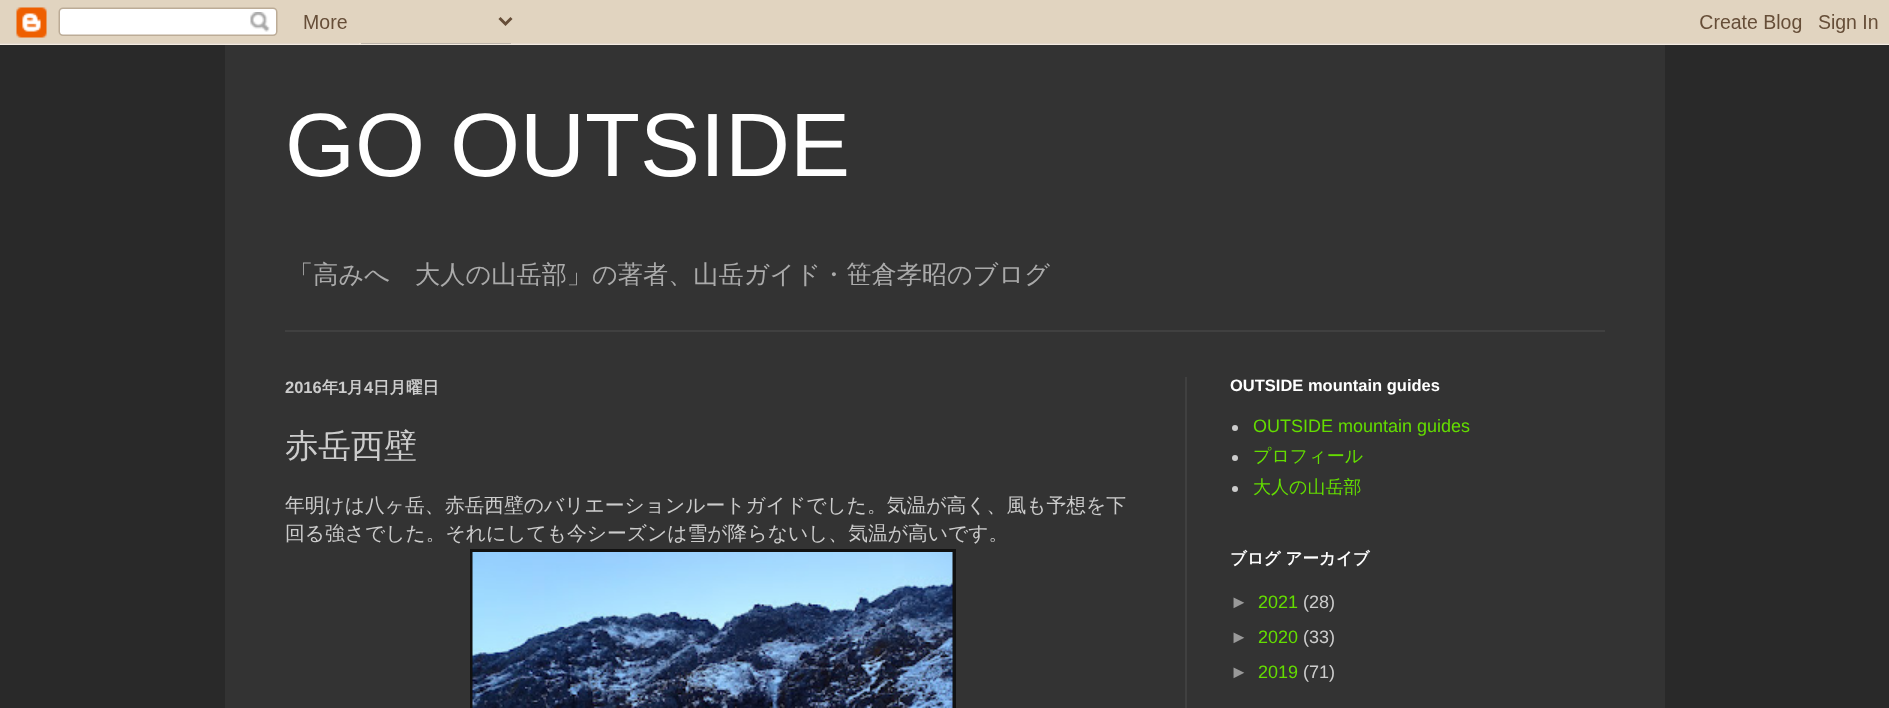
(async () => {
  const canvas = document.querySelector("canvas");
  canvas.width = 1889;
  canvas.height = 708;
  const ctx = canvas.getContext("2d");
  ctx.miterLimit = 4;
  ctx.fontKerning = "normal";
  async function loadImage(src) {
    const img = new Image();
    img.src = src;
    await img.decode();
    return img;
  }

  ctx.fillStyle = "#292929";
  ctx.fillRect(0, 0, 1889, 708);
  ctx.drawImage(await loadImage("img/1.png"), 0, 0, 1889, 45);
  for (const [x, y, w, h, color] of [
    [225, 45, 1440, 663, "#333333"],
    [285, 330, 1320, 2, "#404040"],
    [1185, 377, 2, 331, "#404040"],
    [470, 549, 486, 159, "#111111"],
  ]) {
    ctx.fillStyle = color;
    ctx.fillRect(x, y, w, h);
  }
  ctx.drawImage(await loadImage("img/2.png"), 472, 552, 481, 156);
  ctx.fillStyle = "#cccccc";
  ctx.beginPath();
  ctx.arc(1235, 428, 3, 0, Math.PI * 2);
  ctx.fill();
  ctx.beginPath();
  ctx.arc(1235, 458, 3, 0, Math.PI * 2);
  ctx.fill();
  ctx.beginPath();
  ctx.arc(1235, 489, 3, 0, Math.PI * 2);
  ctx.fill();
  ctx.font = "90px Liberation Sans";
  ctx.fillStyle = "#ffffff";
  ctx.fillText("GO OUTSIDE", 285, 176);
  ctx.font = "500 25.2px WenQuanYi Zen Hei";
  ctx.fillStyle = "#aaaaaa";
  ctx.fillText("「高みへ　大人の山岳部」の著者、山岳ガイド・笹倉孝昭のブログ", 288, 283);
  ctx.font = "bold 16.5px Liberation Sans";
  ctx.fillStyle = "#cccccc";
  ctx.fillText("2016", 285, 393);
  ctx.font = "bold 16.5px WenQuanYi Zen Hei";
  ctx.fillText("年", 322, 393);
  ctx.font = "bold 16.5px Liberation Sans";
  ctx.fillText("1", 338, 393);
  ctx.font = "bold 16.5px WenQuanYi Zen Hei";
  ctx.fillText("月", 347, 393);
  ctx.font = "bold 16.5px Liberation Sans";
  ctx.fillText("4", 364, 393);
  ctx.font = "bold 16.5px WenQuanYi Zen Hei";
  ctx.fillText("日月曜日", 373, 393);
  ctx.font = "500 33px WenQuanYi Zen Hei";
  ctx.fillText("赤岳西壁", 285, 457);
  ctx.font = "500 19.8px WenQuanYi Zen Hei";
  ctx.fillText("年明けは八ヶ岳、赤岳西壁のバリエーションルートガイドでした。気温が高く、風も予想を下", 285, 512);
  ctx.fillText("回る強さでした。それにしても今シーズンは雪が降らないし、気温が高いです。", 285, 540);
  ctx.font = "bold 16.5px Liberation Sans";
  ctx.fillStyle = "#ffffff";
  ctx.fillText("OUTSIDE mountain guides", 1230, 391);
  ctx.font = "18px Liberation Sans";
  ctx.fillStyle = "#64dd00";
  ctx.fillText("OUTSIDE mountain guides", 1253, 432);
  ctx.font = "500 18px WenQuanYi Zen Hei";
  ctx.fillText("プロフィール", 1253, 462);
  ctx.fillText("大人の山岳部", 1253, 493);
  ctx.font = "bold 16.5px WenQuanYi Zen Hei";
  ctx.fillStyle = "#ffffff";
  ctx.fillText("ブログ アーカイブ", 1230, 564);
  ctx.font = "18px Liberation Sans";
  ctx.fillStyle = "#999999";
  ctx.fillText("►", 1230, 608);
  ctx.fillStyle = "#64dd00";
  ctx.fillText("2021", 1258, 608);
  ctx.fillStyle = "#cccccc";
  ctx.fillText("(28)", 1303, 608);
  ctx.fillStyle = "#999999";
  ctx.fillText("►", 1230, 643);
  ctx.fillStyle = "#64dd00";
  ctx.fillText("2020", 1258, 643);
  ctx.fillStyle = "#cccccc";
  ctx.fillText("(33)", 1303, 643);
  ctx.fillStyle = "#999999";
  ctx.fillText("►", 1230, 678);
  ctx.fillStyle = "#64dd00";
  ctx.fillText("2019", 1258, 678);
  ctx.fillStyle = "#cccccc";
  ctx.fillText("(71)", 1303, 678);
})();
